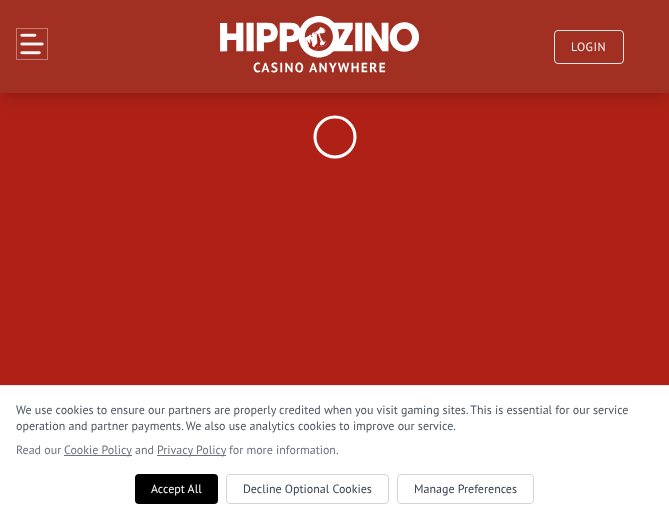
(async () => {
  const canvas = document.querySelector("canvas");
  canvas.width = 669;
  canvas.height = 520;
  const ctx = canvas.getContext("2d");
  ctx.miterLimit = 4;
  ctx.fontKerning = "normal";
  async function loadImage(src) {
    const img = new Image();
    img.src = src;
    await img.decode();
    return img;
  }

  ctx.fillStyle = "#af2117";
  ctx.fillRect(0, 0, 669, 520);
  ctx.fillStyle = "rgba(0, 0, 0, 0.1)";
  ctx.filter = "blur(3px)";
  ctx.beginPath();
  ctx.rect(4, 8, 661, 85);
  ctx.fill();
  ctx.filter = "none";
  ctx.beginPath();
  ctx.arc(335, 137, 20, 0, Math.PI * 2);
  ctx.strokeStyle = "#ffffff";
  ctx.lineWidth = 3;
  ctx.stroke();
  ctx.filter = "blur(7.5px)";
  ctx.beginPath();
  ctx.rect(3, 13, 663, 87);
  ctx.fill();
  ctx.filter = "none";
  ctx.fillStyle = "#a12f22";
  ctx.fillRect(0, 0, 669, 93);
  ctx.drawImage(await loadImage("img/1.png"), 16, 28, 32, 32);
  ctx.drawImage(await loadImage("img/2.png"), 220, 16, 199, 57);
  ctx.beginPath();
  ctx.roundRect(554.5, 30.5, 69, 33, 3.5);
  ctx.strokeStyle = "#e5e7eb";
  ctx.lineWidth = 1;
  ctx.stroke();
  for (const [x, y, w, h, color] of [
    [0, 386, 669, 134, "#ffffff"],
    [0, 385, 669, 1, "#e5e7eb"],
    [64, 455, 68, 1, "#6b7280"],
    [157, 455, 69, 1, "#6b7280"],
  ]) {
    ctx.fillStyle = color;
    ctx.fillRect(x, y, w, h);
  }
  ctx.fillStyle = "#000000";
  ctx.beginPath();
  ctx.roundRect(135, 474, 83, 30, 4);
  ctx.fill();
  ctx.beginPath();
  ctx.roundRect(226.5, 474.5, 162, 29, 3.5);
  ctx.strokeStyle = "#d1d5db";
  ctx.stroke();
  ctx.beginPath();
  ctx.roundRect(397.5, 474.5, 136, 29, 3.5);
  ctx.stroke();
  ctx.letterSpacing = "0.5px";
  ctx.font = "12px PT Sans";
  ctx.fillStyle = "#f9fafb";
  ctx.fillText("LOGIN", 571, 51);
  ctx.letterSpacing = "0px";
  ctx.fillStyle = "#4b5563";
  ctx.fillText("We use cookies to ensure our partners are properly credited when you visit gaming sites. This is essential for our service", 16, 414);
  ctx.fillText("operation and partner payments. We also use analytics cookies to improve our service.", 16, 430);
  ctx.fillStyle = "#6b7280";
  for (const [text, x, y] of [
    ["Read our", 16, 454],
    ["Cookie Policy", 64, 454],
    ["and", 135, 454],
    ["Privacy Policy", 157, 454],
    ["for more information.", 229, 454],
  ]) {
    ctx.fillText(text, x, y);
  }
  ctx.fillStyle = "#ffffff";
  ctx.fillText("Accept All", 151, 493);
  ctx.fillStyle = "#374151";
  ctx.fillText("Decline Optional Cookies", 243, 493);
  ctx.fillText("Manage Preferences", 414, 493);
})();
